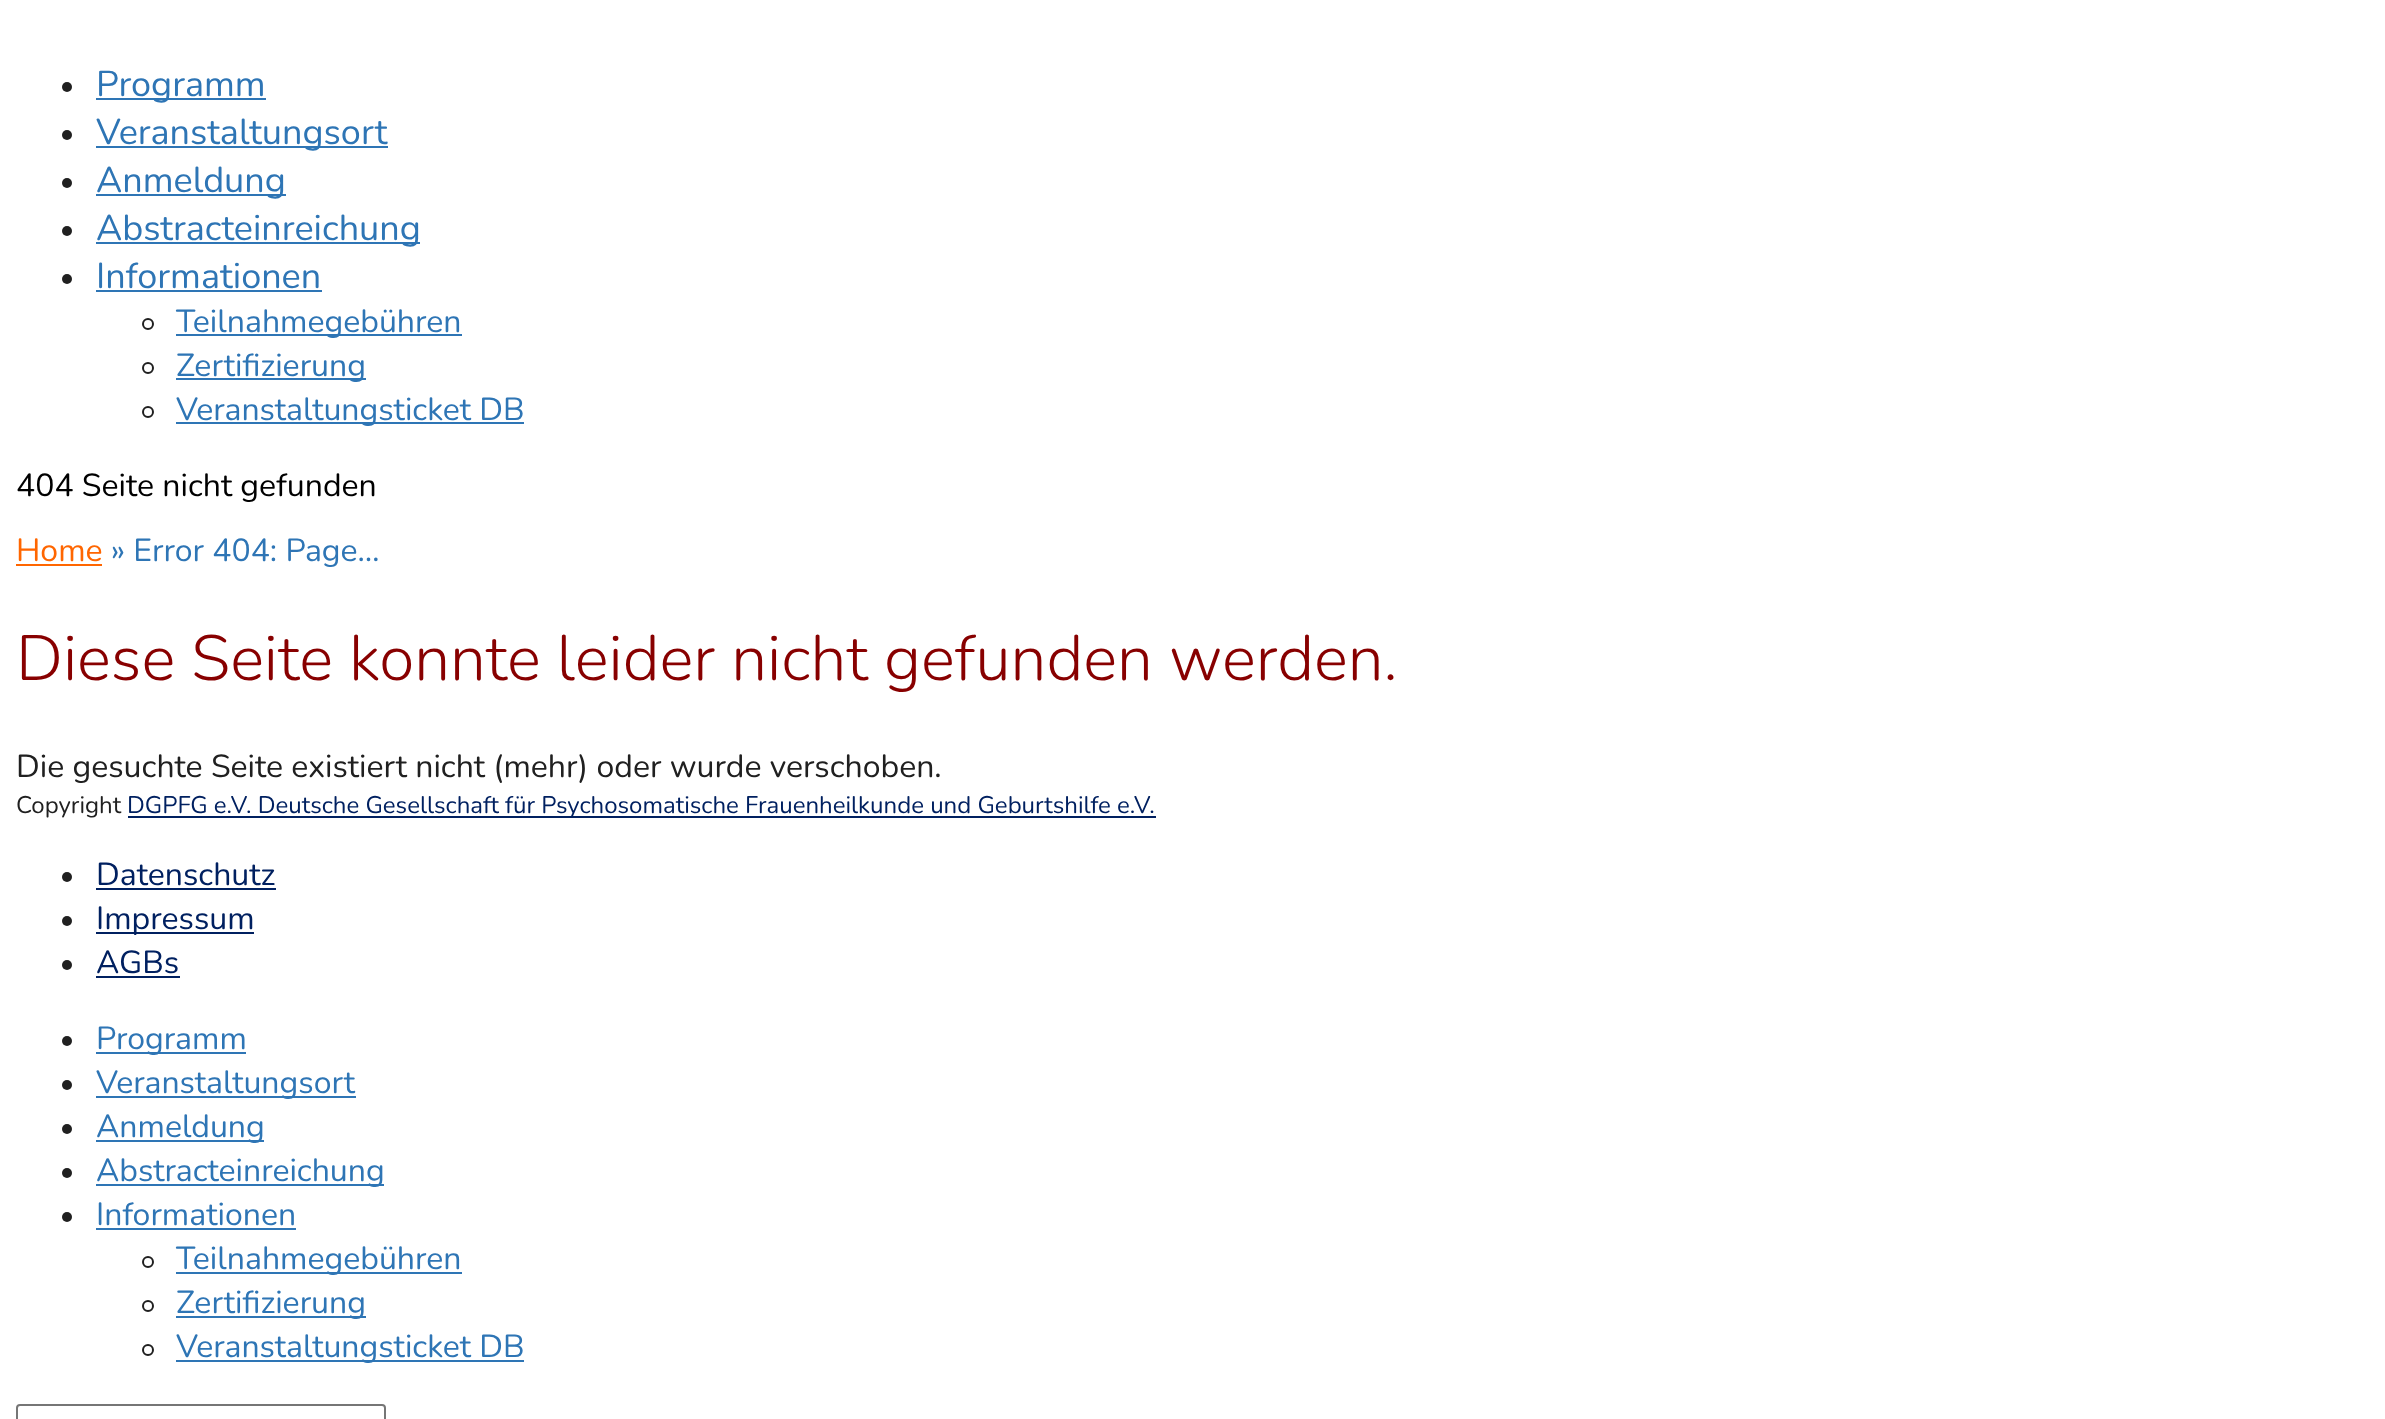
(async () => {
  const canvas = document.querySelector("canvas");
  canvas.width = 2385;
  canvas.height = 1419;
  const ctx = canvas.getContext("2d");
  ctx.miterLimit = 4;
  ctx.fontKerning = "normal";

  ctx.fillStyle = "#ffffff";
  ctx.fillRect(0, 0, 2385, 1419);
  ctx.fillStyle = "#202020";
  ctx.beginPath();
  ctx.arc(67, 87, 5, 0, Math.PI * 2);
  ctx.fill();
  ctx.fillStyle = "#2e75b5";
  ctx.fillRect(96, 98, 170, 2);
  ctx.fillStyle = "#202020";
  ctx.beginPath();
  ctx.arc(67, 135, 5, 0, Math.PI * 2);
  ctx.fill();
  ctx.fillStyle = "#2e75b5";
  ctx.fillRect(96, 146, 292, 2);
  ctx.fillStyle = "#202020";
  ctx.beginPath();
  ctx.arc(67, 183, 5, 0, Math.PI * 2);
  ctx.fill();
  ctx.fillStyle = "#2e75b5";
  ctx.fillRect(96, 194, 190, 2);
  ctx.fillStyle = "#202020";
  ctx.beginPath();
  ctx.arc(67, 231, 5, 0, Math.PI * 2);
  ctx.fill();
  ctx.fillStyle = "#2e75b5";
  ctx.fillRect(96, 242, 324, 2);
  ctx.fillStyle = "#202020";
  ctx.beginPath();
  ctx.arc(67, 279, 5, 0, Math.PI * 2);
  ctx.fill();
  ctx.fillStyle = "#2e75b5";
  ctx.fillRect(96, 290, 226, 2);
  ctx.beginPath();
  ctx.arc(148, 324, 5, 0, Math.PI * 2);
  ctx.strokeStyle = "#202020";
  ctx.lineWidth = 2;
  ctx.stroke();
  ctx.fillRect(176, 334, 286, 2);
  ctx.beginPath();
  ctx.arc(148, 368, 5, 0, Math.PI * 2);
  ctx.stroke();
  ctx.fillRect(176, 378, 190, 2);
  ctx.beginPath();
  ctx.arc(148, 412, 5, 0, Math.PI * 2);
  ctx.stroke();
  for (const [x, y, w, h, color] of [
    [176, 422, 348, 2, "#2e75b5"],
    [16, 564, 86, 2, "#ff6600"],
    [128, 816, 1028, 2, "#002060"],
  ]) {
    ctx.fillStyle = color;
    ctx.fillRect(x, y, w, h);
  }
  ctx.fillStyle = "#202020";
  ctx.beginPath();
  ctx.arc(67, 877, 5, 0, Math.PI * 2);
  ctx.fill();
  ctx.fillStyle = "#002060";
  ctx.fillRect(96, 888, 180, 2);
  ctx.fillStyle = "#202020";
  ctx.beginPath();
  ctx.arc(67, 921, 5, 0, Math.PI * 2);
  ctx.fill();
  ctx.fillStyle = "#002060";
  ctx.fillRect(96, 932, 158, 2);
  ctx.fillStyle = "#202020";
  ctx.beginPath();
  ctx.arc(67, 965, 5, 0, Math.PI * 2);
  ctx.fill();
  ctx.fillStyle = "#002060";
  ctx.fillRect(96, 976, 84, 2);
  ctx.fillStyle = "#202020";
  ctx.beginPath();
  ctx.arc(67, 1041, 5, 0, Math.PI * 2);
  ctx.fill();
  ctx.fillStyle = "#2e75b5";
  ctx.fillRect(96, 1052, 150, 2);
  ctx.fillStyle = "#202020";
  ctx.beginPath();
  ctx.arc(67, 1085, 5, 0, Math.PI * 2);
  ctx.fill();
  ctx.fillStyle = "#2e75b5";
  ctx.fillRect(96, 1096, 260, 2);
  ctx.fillStyle = "#202020";
  ctx.beginPath();
  ctx.arc(67, 1129, 5, 0, Math.PI * 2);
  ctx.fill();
  ctx.fillStyle = "#2e75b5";
  ctx.fillRect(96, 1140, 168, 2);
  ctx.fillStyle = "#202020";
  ctx.beginPath();
  ctx.arc(67, 1173, 5, 0, Math.PI * 2);
  ctx.fill();
  ctx.fillStyle = "#2e75b5";
  ctx.fillRect(96, 1184, 288, 2);
  ctx.fillStyle = "#202020";
  ctx.beginPath();
  ctx.arc(67, 1217, 5, 0, Math.PI * 2);
  ctx.fill();
  ctx.fillStyle = "#2e75b5";
  ctx.fillRect(96, 1228, 200, 2);
  ctx.beginPath();
  ctx.arc(148, 1262, 5, 0, Math.PI * 2);
  ctx.stroke();
  ctx.fillRect(176, 1272, 286, 2);
  ctx.beginPath();
  ctx.arc(148, 1306, 5, 0, Math.PI * 2);
  ctx.stroke();
  ctx.fillRect(176, 1316, 190, 2);
  ctx.beginPath();
  ctx.arc(148, 1350, 5, 0, Math.PI * 2);
  ctx.stroke();
  ctx.fillRect(176, 1360, 348, 2);
  ctx.beginPath();
  ctx.roundRect(17, 1405, 368, 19, 3);
  ctx.strokeStyle = "#767676";
  ctx.stroke();
  ctx.font = "36px Nunito";
  for (const [text, x, y] of [
    ["Programm", 96, 96],
    ["Veranstaltungsort", 96, 144],
    ["Anmeldung", 96, 192],
    ["Abstracteinreichung", 96, 240],
    ["Informationen", 96, 288],
  ]) {
    ctx.fillText(text, x, y);
  }
  ctx.font = "32px Nunito";
  for (const [text, x, y] of [
    ["Teilnahmegebühren", 176, 332],
    ["Zertifizierung", 176, 376],
    ["Veranstaltungsticket DB", 176, 420],
  ]) {
    ctx.fillText(text, x, y);
  }
  ctx.fillStyle = "#000000";
  ctx.fillText("404 Seite nicht gefunden", 16, 496);
  ctx.fillStyle = "#ff6600";
  ctx.fillText("Home", 16, 561);
  ctx.fillStyle = "#2e75b5";
  ctx.fillText("» Error 404: Page…", 111, 561);
  ctx.font = "300 64px Nunito";
  ctx.fillStyle = "#880000";
  ctx.fillText("Diese Seite konnte leider nicht gefunden werden.", 16, 680);
  ctx.font = "32px Nunito";
  ctx.fillStyle = "#202020";
  ctx.fillText("Die gesuchte Seite existiert nicht (mehr) oder wurde verschoben.", 16, 777);
  ctx.font = "24px Nunito";
  ctx.fillText("Copyright", 16, 813);
  ctx.fillStyle = "#002060";
  ctx.fillText("DGPFG e.V. Deutsche Gesellschaft für Psychosomatische Frauenheilkunde und Geburtshilfe e.V.", 127, 813);
  ctx.font = "32px Nunito";
  for (const [text, x, y] of [
    ["Datenschutz", 96, 885],
    ["Impressum", 96, 929],
    ["AGBs", 96, 973],
  ]) {
    ctx.fillText(text, x, y);
  }
  ctx.fillStyle = "#2e75b5";
  for (const [text, x, y] of [
    ["Programm", 96, 1049],
    ["Veranstaltungsort", 96, 1093],
    ["Anmeldung", 96, 1137],
    ["Abstracteinreichung", 96, 1181],
    ["Informationen", 96, 1225],
    ["Teilnahmegebühren", 176, 1269],
    ["Zertifizierung", 176, 1313],
    ["Veranstaltungsticket DB", 176, 1357],
  ]) {
    ctx.fillText(text, x, y);
  }
})();
